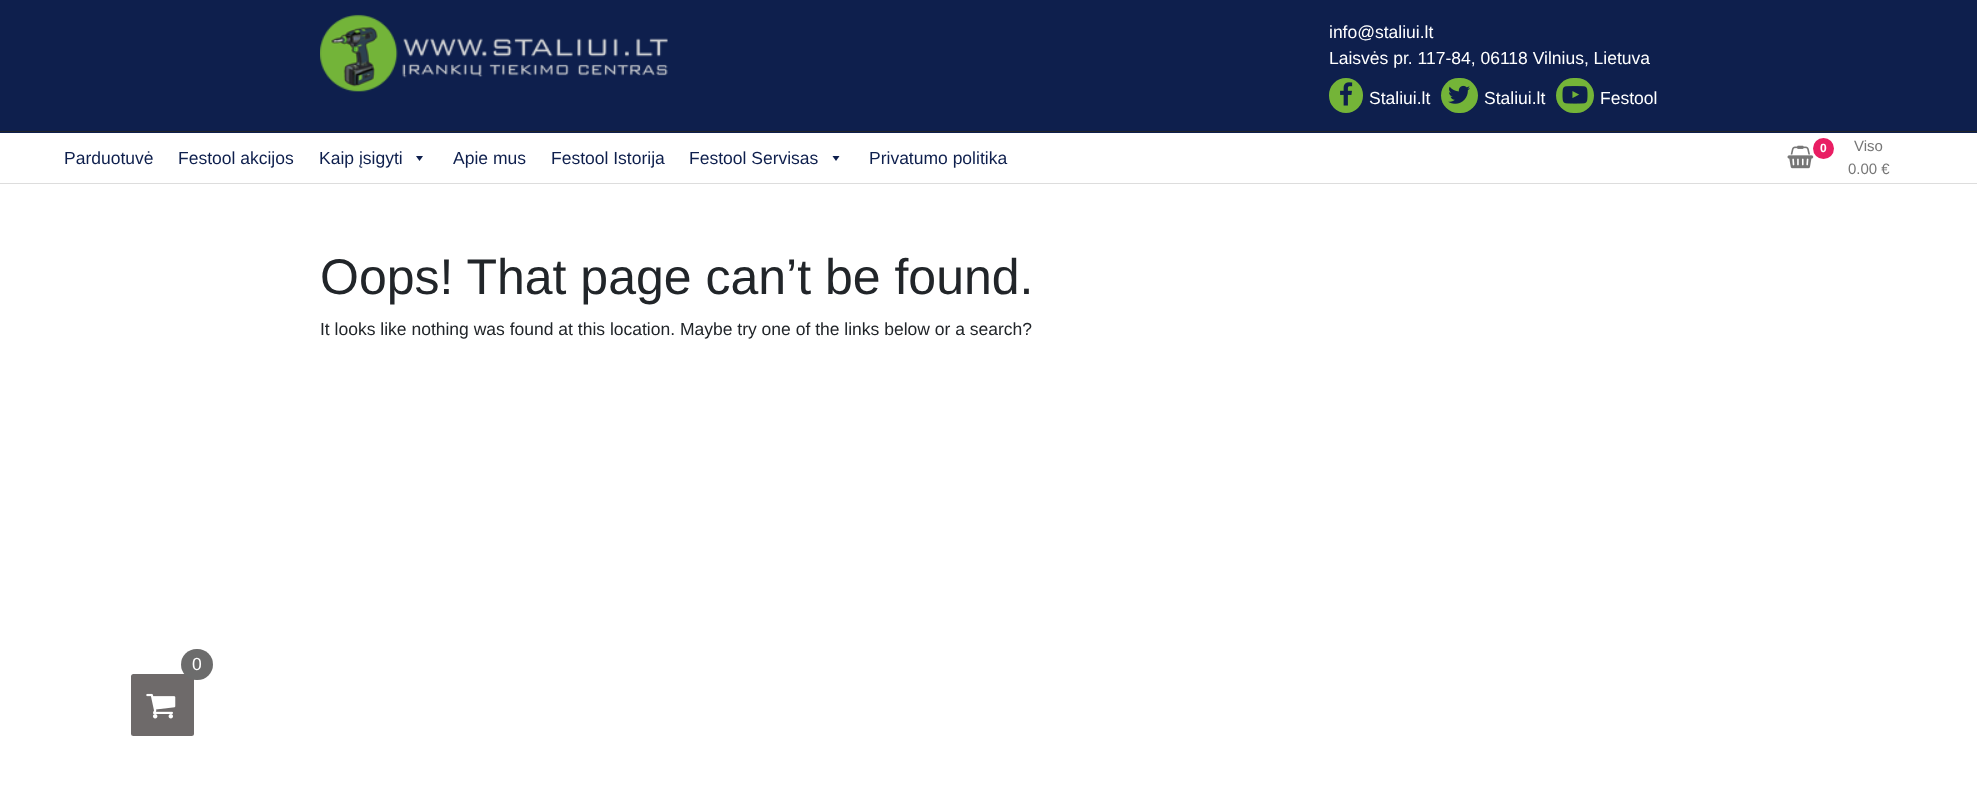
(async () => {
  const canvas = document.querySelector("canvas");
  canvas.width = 1977;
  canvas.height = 808;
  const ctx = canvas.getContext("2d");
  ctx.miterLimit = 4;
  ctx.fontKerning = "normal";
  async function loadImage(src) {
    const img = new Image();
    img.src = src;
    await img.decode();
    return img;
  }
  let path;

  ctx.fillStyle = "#ffffff";
  ctx.fillRect(0, 0, 1977, 808);
  for (const [x, y, w, h, color] of [
    [0, 183, 1977, 1, "#dddddd"],
    [0, 0, 1977, 133, "#0e1f4d"],
    [0, 131, 1977, 1, "#212529"],
  ]) {
    ctx.fillStyle = color;
    ctx.fillRect(x, y, w, h);
  }
  ctx.drawImage(await loadImage("img/1.png"), 320, 14, 348, 78);
  ctx.fillStyle = "#74b438";
  ctx.beginPath();
  ctx.roundRect(1329, 78, 34, 35, 17);
  ctx.fill();
  ctx.drawImage(await loadImage("img/2.png"), 1340, 82, 13, 24);
  ctx.beginPath();
  ctx.roundRect(1441, 78, 37, 35, 17.5);
  ctx.fill();
  ctx.drawImage(await loadImage("img/3.png"), 1448, 85, 22, 19);
  ctx.beginPath();
  ctx.roundRect(1556, 78, 38, 35, 17.5);
  ctx.fill();
  ctx.drawImage(await loadImage("img/4.png"), 1562, 86, 26, 18);
  ctx.fillStyle = "#0e1f4d";
  path = new Path2D("M423 156L419.5 161L416 156Z");
  ctx.fill(path);
  path = new Path2D("M839.5 156L836 161L832.5 156Z");
  ctx.fill(path);
  ctx.drawImage(await loadImage("img/5.png"), 1787, 145, 27, 24);
  ctx.fillStyle = "#e91e63";
  ctx.beginPath();
  ctx.arc(1823.5, 148.5, 10.5, 0, Math.PI * 2);
  ctx.fill();
  ctx.fillStyle = "#6e6a6a";
  ctx.beginPath();
  ctx.roundRect(131, 674, 63, 62, 2.5);
  ctx.fill();
  ctx.fillStyle = "#6c6c6c";
  ctx.beginPath();
  ctx.roundRect(181, 649, 32, 31, 15.5);
  ctx.fill();
  ctx.drawImage(await loadImage("img/6.png"), 146, 693, 30, 26);
  ctx.font = "17.5px Liberation Sans";
  ctx.fillStyle = "#ffffff";
  for (const [text, x, y] of [
    ["info@staliui.lt", 1329, 38],
    ["Laisvės pr. 117-84, 06118 Vilnius, Lietuva", 1329, 64],
    ["Staliui.lt", 1369, 104],
    ["Staliui.lt", 1484, 104],
    ["Festool", 1600, 104],
  ]) {
    ctx.fillText(text, x, y);
  }
  ctx.fillStyle = "#0e1f4d";
  for (const [text, x, y] of [
    ["Parduotuvė", 64, 164],
    ["Festool akcijos", 178, 164],
    ["Kaip įsigyti", 319, 164],
    ["Apie mus", 453, 164],
    ["Festool Istorija", 551, 164],
    ["Festool Servisas", 689, 164],
    ["Privatumo politika", 869, 164],
  ]) {
    ctx.fillText(text, x, y);
  }
  ctx.font = "bold 12px Liberation Sans";
  ctx.fillStyle = "#ffffff";
  ctx.fillText("0", 1820, 152);
  ctx.font = "15px Liberation Sans";
  ctx.fillStyle = "#767676";
  ctx.fillText("Viso", 1854, 151);
  ctx.fillText("0.00 €", 1848, 174);
  ctx.font = "50px Liberation Sans";
  ctx.fillStyle = "#212529";
  ctx.fillText("Oops! That page can’t be found.", 320, 294);
  ctx.font = "17.5px Liberation Sans";
  ctx.fillText("It looks like nothing was found at this location. Maybe try one of the links below or a search?", 320, 335);
  ctx.fillStyle = "#ffffff";
  ctx.fillText("0", 192, 670);
})();
